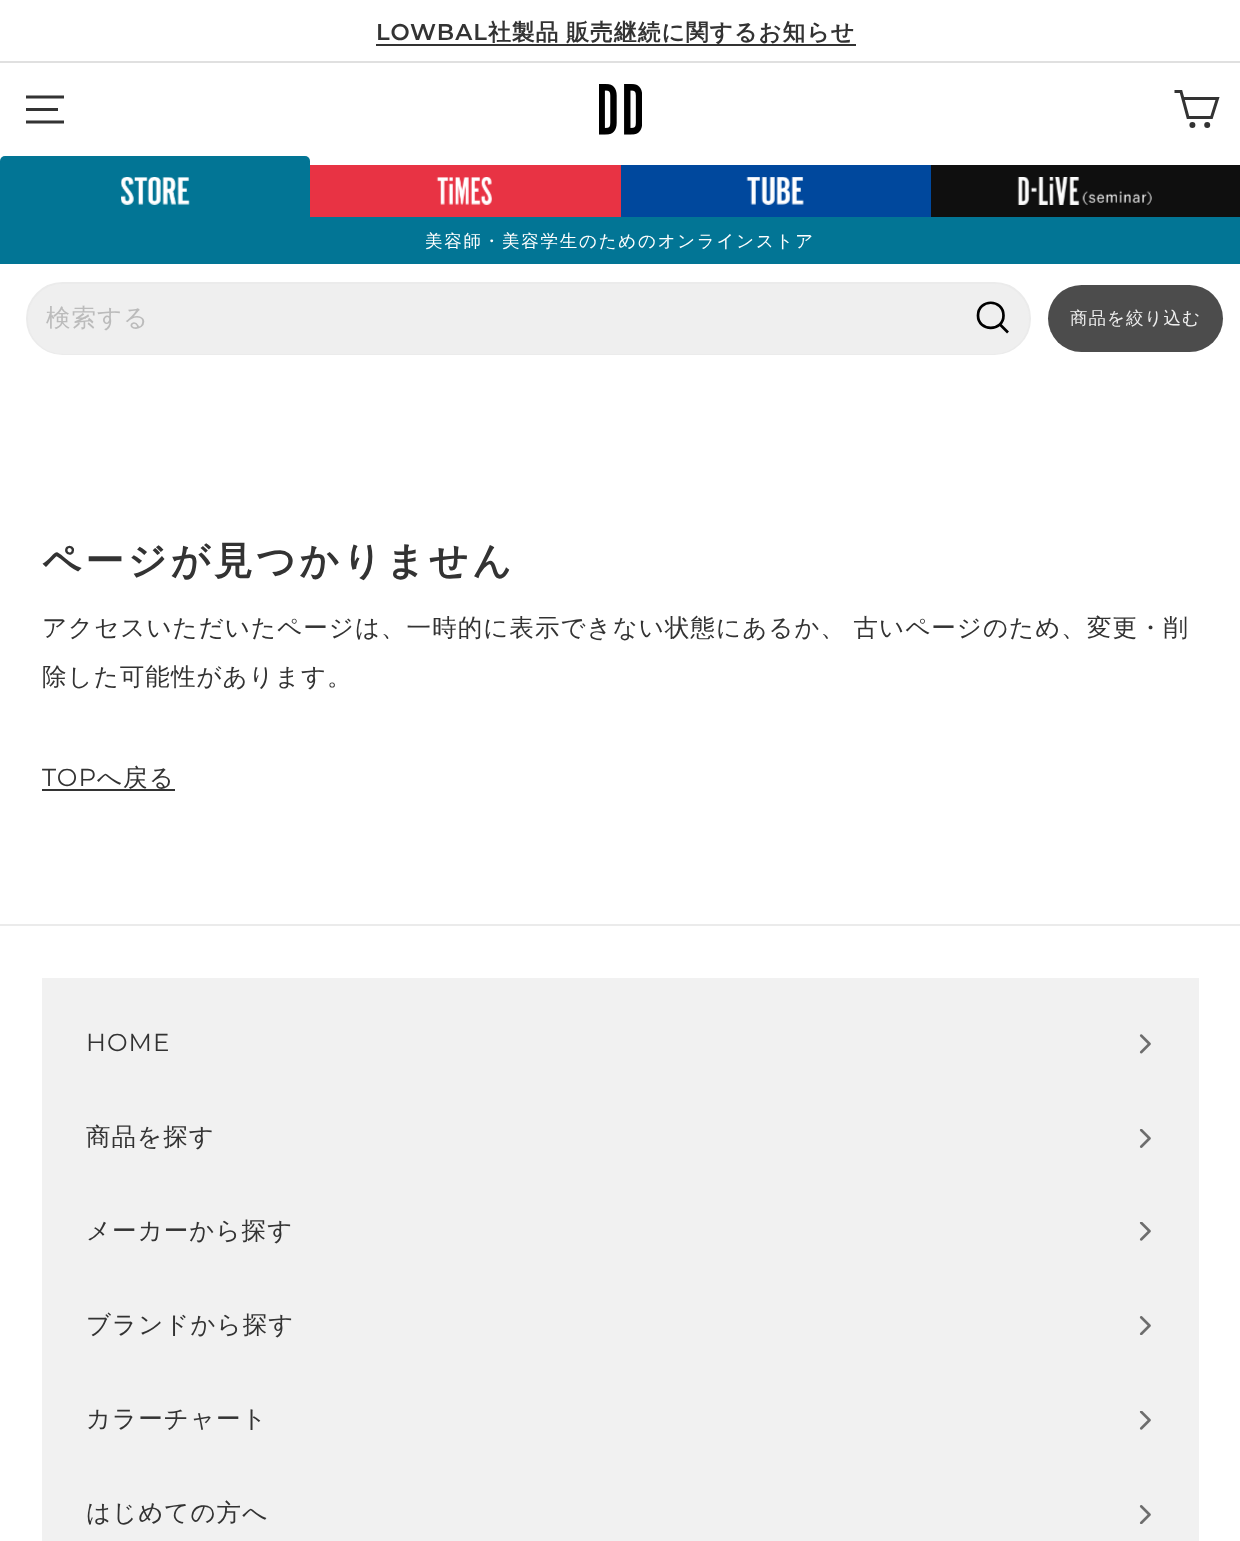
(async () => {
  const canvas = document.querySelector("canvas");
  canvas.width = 1240;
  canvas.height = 1541;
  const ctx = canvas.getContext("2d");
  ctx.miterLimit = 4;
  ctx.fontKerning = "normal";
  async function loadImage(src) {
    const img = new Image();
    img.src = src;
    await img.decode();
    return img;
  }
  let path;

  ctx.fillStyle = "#ffffff";
  ctx.fillRect(0, 0, 1240, 1541);
  ctx.fillStyle = "#333333";
  ctx.fillRect(376, 44, 480, 2);
  ctx.fillStyle = "#e0e0e0";
  ctx.fillRect(0, 61, 1240, 2);
  path = new Path2D("M26 97H64");
  ctx.strokeStyle = "#333333";
  ctx.lineWidth = 3;
  ctx.stroke(path);
  ctx.fillStyle = "#333333";
  ctx.fillRect(26, 108, 32, 3);
  path = new Path2D("M26 122H64");
  ctx.stroke(path);
  ctx.drawImage(await loadImage("img/1.png"), 599, 84, 43, 51);
  path = new Path2D("M1183 98.5H1217.5L1211.5 117.5H1188L1181 91.5H1174.5");
  ctx.stroke(path);
  ctx.beginPath();
  ctx.arc(1192.4, 124.9, 1.5, 0, Math.PI * 2);
  ctx.stroke();
  ctx.beginPath();
  ctx.arc(1207.2, 124.9, 1.5, 0, Math.PI * 2);
  ctx.stroke();
  ctx.fillStyle = "#027595";
  ctx.beginPath();
  ctx.roundRect(0, 156, 310, 61, [5, 5, 0, 0]);
  ctx.fill();
  ctx.drawImage(await loadImage("img/2.png"), 121, 177, 69, 28);
  ctx.fillStyle = "#e83344";
  ctx.fillRect(310, 165, 311, 52);
  ctx.drawImage(await loadImage("img/3.png"), 436, 177, 56, 28);
  ctx.fillStyle = "#00489d";
  ctx.fillRect(621, 165, 310, 52);
  ctx.drawImage(await loadImage("img/4.png"), 746, 177, 58, 28);
  ctx.fillStyle = "#0f0f0f";
  ctx.fillRect(931, 165, 309, 52);
  ctx.drawImage(await loadImage("img/5.png"), 1017, 177, 135, 28);
  ctx.fillStyle = "#027595";
  ctx.fillRect(0, 217, 1240, 47);
  ctx.fillStyle = "#efefef";
  ctx.beginPath();
  ctx.roundRect(27, 283, 1003, 71, 35.5);
  ctx.fill();
  ctx.strokeStyle = "#ebebeb";
  ctx.lineWidth = 2;
  ctx.stroke();
  ctx.beginPath();
  ctx.roundRect(28, 284, 1001, 70, 35);
  ctx.fill();
  path = new Path2D("M1003.5 315.5C1003.5 332 978 332 978 315.5C978 298.5 1003.5 298.5 1003.5 315.5ZM1008 332.5L1000 324.5");
  ctx.strokeStyle = "#000000";
  ctx.lineWidth = 2.7;
  ctx.stroke(path);
  ctx.fillStyle = "#4c4c4c";
  ctx.beginPath();
  ctx.roundRect(1048, 285, 175, 67, 33.5);
  ctx.fill();
  for (const [x, y, w, h, color] of [
    [42, 789, 133, 2, "#333333"],
    [0, 924, 1240, 2, "#ebebeb"],
    [42, 978, 1157, 563, "#f1f1f1"],
  ]) {
    ctx.fillStyle = color;
    ctx.fillRect(x, y, w, h);
  }
  ctx.drawImage(await loadImage("img/6.png"), 1139, 1034, 12, 20);
  ctx.drawImage(await loadImage("img/7.png"), 1139, 1129, 12, 19);
  ctx.drawImage(await loadImage("img/8.png"), 1139, 1222, 12, 19);
  ctx.drawImage(await loadImage("img/9.png"), 1139, 1316, 12, 19);
  ctx.drawImage(await loadImage("img/8.png"), 1139, 1411, 12, 19);
  ctx.drawImage(await loadImage("img/9.png"), 1139, 1505, 12, 19);
  ctx.letterSpacing = "1.05px";
  ctx.font = "600 22.75px Montserrat";
  ctx.fillStyle = "#333333";
  ctx.fillText("LOWBAL", 376, 40);
  ctx.wordSpacing = "-1px";
  ctx.font = "bold 22.75px WenQuanYi Zen Hei";
  ctx.fillText("社製品 販売継続に関するお知らせ", 488, 40);
  ctx.letterSpacing = "1.75px";
  ctx.wordSpacing = "0px";
  ctx.font = "500 17.5px WenQuanYi Zen Hei";
  ctx.fillStyle = "#ffffff";
  ctx.fillText("美容師・美容学生のためのオンラインストア", 425, 247);
  ctx.letterSpacing = "1px";
  ctx.font = "500 24.5px WenQuanYi Zen Hei";
  ctx.fillStyle = "#bbbbbb";
  ctx.fillText("検索する", 46, 326);
  ctx.letterSpacing = "1.05px";
  ctx.font = "500 17.5px WenQuanYi Zen Hei";
  ctx.fillStyle = "#efefef";
  ctx.fillText("商品を絞り込む", 1070, 324);
  ctx.letterSpacing = "3.8px";
  ctx.font = "bold 38.5px WenQuanYi Zen Hei";
  ctx.fillStyle = "#333333";
  ctx.fillText("ページが見つかりません", 42, 574);
  ctx.letterSpacing = "1.05px";
  ctx.wordSpacing = "-1px";
  ctx.font = "500 24.5px WenQuanYi Zen Hei";
  ctx.fillText("アクセスいただいたページは、一時的に表示できない状態にあるか、 古いページのため、変更・削", 42, 636);
  ctx.wordSpacing = "0px";
  ctx.fillText("除した可能性があります。", 42, 685);
  ctx.font = "24.5px Montserrat";
  ctx.fillText("TOP", 42, 786);
  ctx.font = "500 24.5px WenQuanYi Zen Hei";
  ctx.fillText("へ戻る", 97, 786);
  ctx.font = "24.5px Montserrat";
  ctx.fillText("HOME", 86, 1051);
  ctx.font = "500 24.5px WenQuanYi Zen Hei";
  for (const [text, x, y] of [
    ["商品を探す", 86, 1145],
    ["メーカーから探す", 86, 1239],
    ["ブランドから探す", 86, 1333],
    ["カラーチャート", 86, 1427],
    ["はじめての方へ", 86, 1521],
  ]) {
    ctx.fillText(text, x, y);
  }
})();
